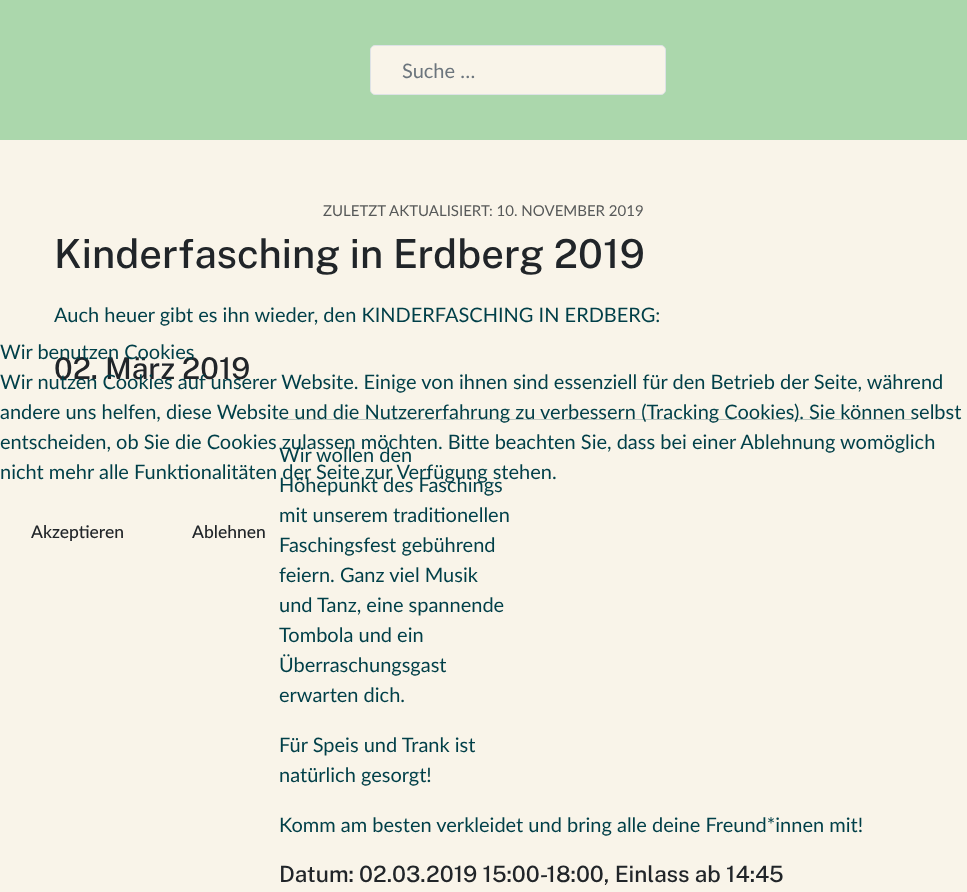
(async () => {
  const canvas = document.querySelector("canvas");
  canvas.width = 967;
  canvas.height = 892;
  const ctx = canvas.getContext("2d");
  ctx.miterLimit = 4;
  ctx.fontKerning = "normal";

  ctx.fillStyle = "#f9f4e9";
  ctx.fillRect(0, 0, 967, 892);
  ctx.fillStyle = "#abd7ac";
  ctx.fillRect(0, 0, 967, 140);
  ctx.fillStyle = "#f9f4e9";
  ctx.beginPath();
  ctx.roundRect(370.5, 45.5, 295, 49, 4.5);
  ctx.fill();
  ctx.strokeStyle = "#dee2e6";
  ctx.stroke();
  ctx.fillStyle = "#bbc7c1";
  ctx.fillRect(279, 419, 635, 1);
  ctx.font = "20px Lato";
  ctx.fillStyle = "#6c757d";
  ctx.fillText("Suche …", 402, 78);
  ctx.font = "15px Lato";
  ctx.fillStyle = "#575959";
  ctx.fillText("ZULETZT AKTUALISIERT: 10. NOVEMBER 2019", 323, 216);
  ctx.font = "500 40px Public Sans";
  ctx.fillStyle = "#212529";
  ctx.fillText("Kinderfasching in Erdberg 2019", 54, 268);
  ctx.font = "20px Lato";
  ctx.fillStyle = "#003f48";
  ctx.fillText("Auch heuer gibt es ihn wieder, den KINDERFASCHING IN ERDBERG:", 54, 322);
  ctx.font = "500 30px Public Sans";
  ctx.fillStyle = "#212529";
  ctx.fillText("02. März 2019", 54, 379);
  ctx.font = "20px Lato";
  ctx.fillStyle = "#003f48";
  for (const [text, x, y] of [
    ["Wir wollen den", 279, 462],
    ["Höhepunkt des Faschings", 279, 492],
    ["mit unserem traditionellen", 279, 522],
    ["Faschingsfest gebührend", 279, 552],
    ["feiern. Ganz viel Musik", 279, 582],
    ["und Tanz, eine spannende", 279, 612],
    ["Tombola und ein", 279, 642],
    ["Überraschungsgast", 279, 672],
    ["erwarten dich.", 279, 702],
    ["Für Speis und Trank ist", 279, 752],
    ["natürlich gesorgt!", 279, 782],
    ["Komm am besten verkleidet und bring alle deine Freund*innen mit!", 279, 832],
  ]) {
    ctx.fillText(text, x, y);
  }
  ctx.font = "500 22.5px Public Sans";
  ctx.fillStyle = "#212529";
  ctx.fillText("Datum: 02.03.2019 15:00-18:00, Einlass ab 14:45", 279, 882);
  ctx.font = "20px Lato";
  ctx.fillStyle = "#003f48";
  for (const [text, x, y] of [
    ["Wir benutzen Cookies", 0, 359],
    ["Wir nutzen Cookies auf unserer Website. Einige von ihnen sind essenziell für den Betrieb der Seite, während", 0, 389],
    ["andere uns helfen, diese Website und die Nutzererfahrung zu verbessern (Tracking Cookies). Sie können selbst", 0, 419],
    ["entscheiden, ob Sie die Cookies zulassen möchten. Bitte beachten Sie, dass bei einer Ablehnung womöglich", 0, 449],
    ["nicht mehr alle Funktionalitäten der Seite zur Verfügung stehen.", 0, 479],
  ]) {
    ctx.fillText(text, x, y);
  }
  ctx.font = "500 17.5px Lato";
  ctx.fillStyle = "#212529";
  ctx.fillText("Akzeptieren", 31, 538);
  ctx.fillText("Ablehnen", 192, 538);
})();
